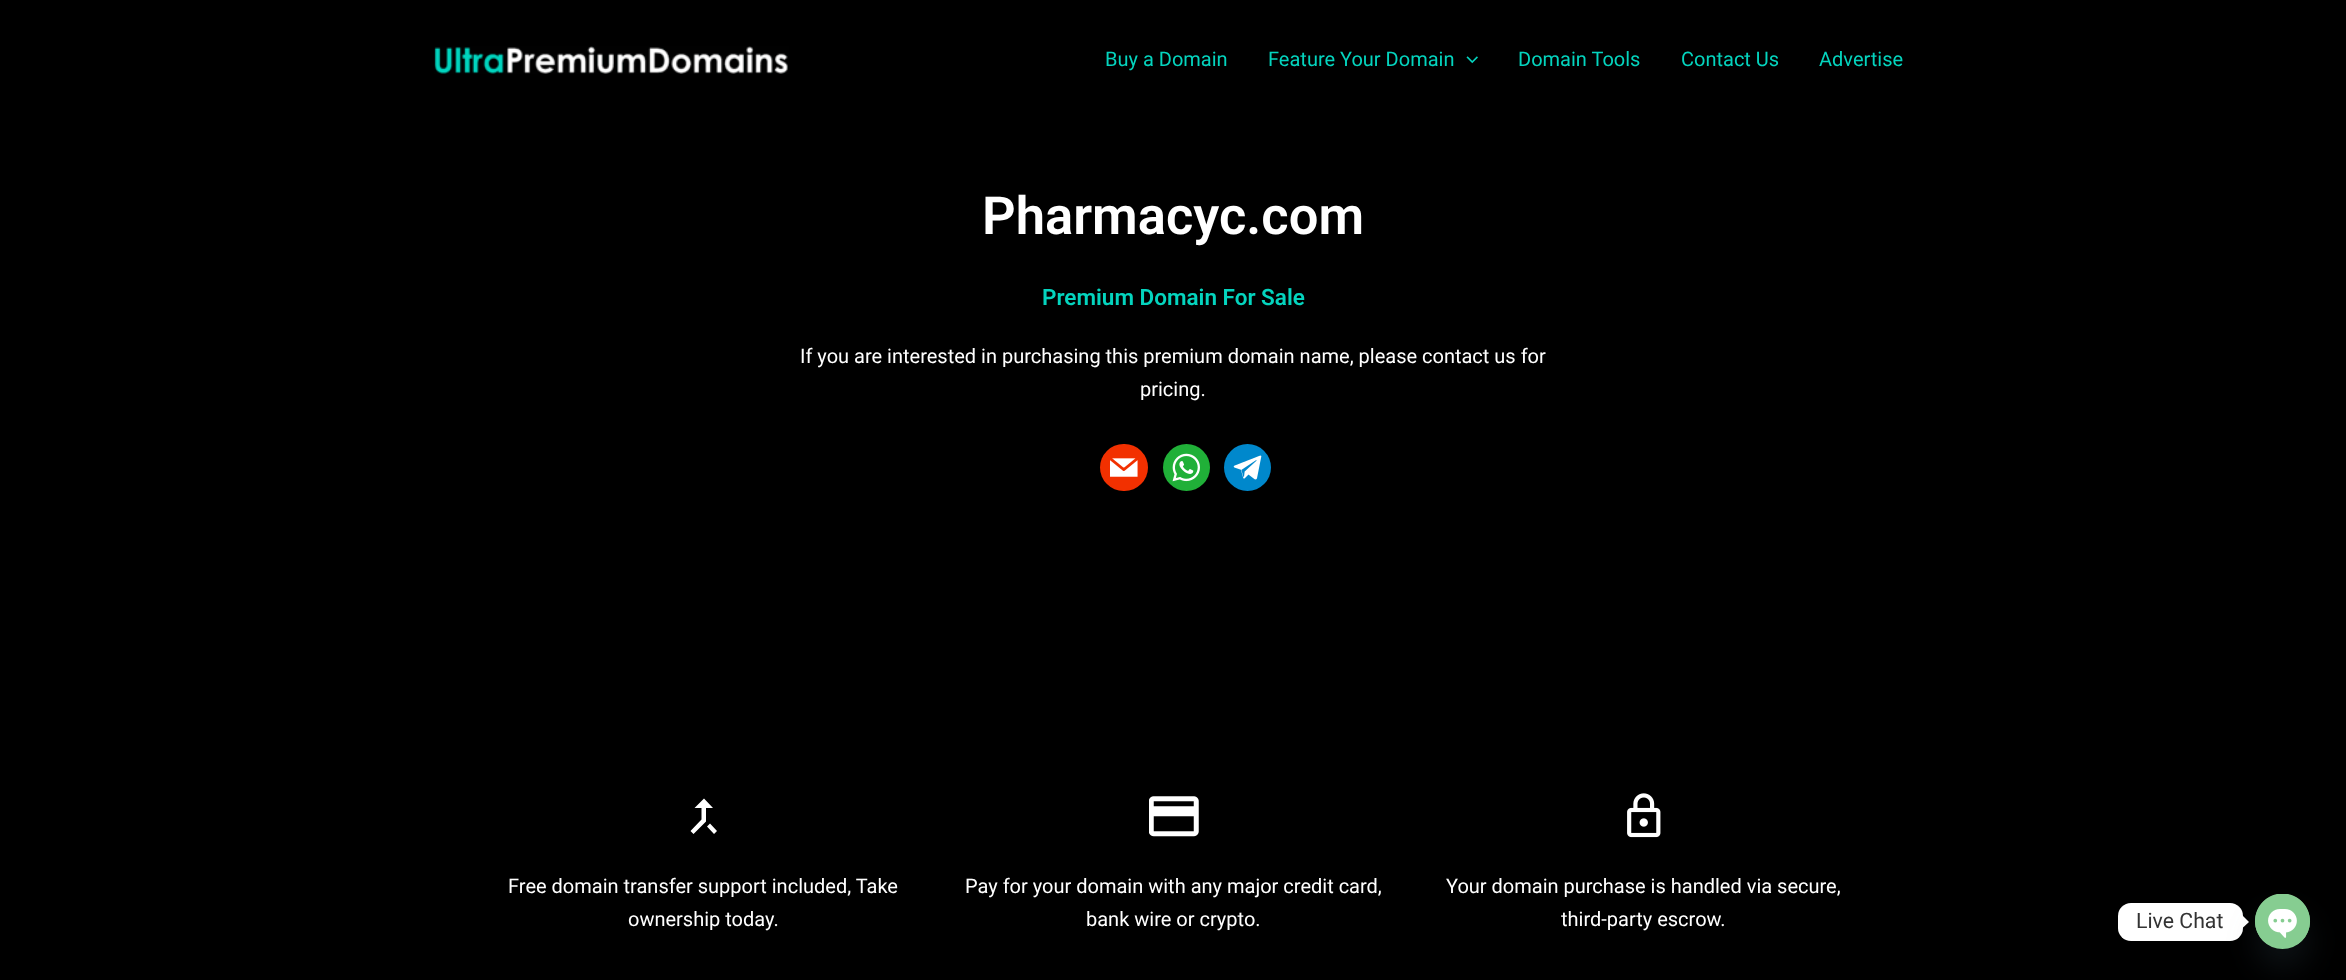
(async () => {
  const canvas = document.querySelector("canvas");
  canvas.width = 2346;
  canvas.height = 980;
  const ctx = canvas.getContext("2d");
  ctx.miterLimit = 4;
  ctx.fontKerning = "normal";
  async function loadImage(src) {
    const img = new Image();
    img.src = src;
    await img.decode();
    return img;
  }
  let path;

  ctx.fillStyle = "#000000";
  ctx.fillRect(0, 0, 2346, 980);
  ctx.drawImage(await loadImage("img/1.png"), 434, 46, 355, 28);
  ctx.drawImage(await loadImage("img/2.png"), 1466, 56, 12, 8);
  ctx.fillStyle = "#f23000";
  ctx.beginPath();
  ctx.roundRect(1100, 444, 48, 47, 23.5);
  ctx.fill();
  ctx.drawImage(await loadImage("img/3.png"), 1110, 458, 28, 19);
  ctx.fillStyle = "#20b038";
  ctx.beginPath();
  ctx.arc(1186.5, 467.5, 23.5, 0, Math.PI * 2);
  ctx.fill();
  ctx.drawImage(await loadImage("img/4.png"), 1172, 453, 28, 29);
  ctx.fillStyle = "#0088cc";
  ctx.beginPath();
  ctx.arc(1247.5, 467.5, 23.5, 0, Math.PI * 2);
  ctx.fill();
  ctx.drawImage(await loadImage("img/5.png"), 1233, 455, 29, 25);
  ctx.fillStyle = "#ffffff";
  path = new Path2D("M714 834L717 831L710 823.5L707 826.5ZM694.5 808H701.5V819.5L690.5 831L693.5 834L706 821.5V808H713L704 798.5Z");
  ctx.fill(path);
  ctx.drawImage(await loadImage("img/6.png"), 1149, 796, 50, 41);
  ctx.drawImage(await loadImage("img/7.png"), 1627, 793, 34, 45);
  ctx.beginPath();
  ctx.roundRect(2118, 903, 125, 38, 13);
  ctx.fill();
  path = new Path2D("M2242.5 928V915.5L2249 922Z");
  ctx.fill(path);
  ctx.fillStyle = "rgba(73, 104, 126, 0.16)";
  ctx.filter = "blur(15px)";
  ctx.beginPath();
  ctx.roundRect(2255, 914, 55, 55, 27.5);
  ctx.fill();
  ctx.filter = "none";
  ctx.fillStyle = "#86cd91";
  ctx.beginPath();
  ctx.arc(2282.5, 921.5, 27.5, 0, Math.PI * 2);
  ctx.fill();
  ctx.drawImage(await loadImage("img/8.png"), 2255, 894, 55, 51);
  ctx.font = "20px Roboto";
  ctx.fillStyle = "#04d4be";
  for (const [text, x, y] of [
    ["Buy a Domain", 1105, 66],
    ["Feature Your Domain", 1268, 66],
    ["Domain Tools", 1518, 66],
    ["Contact Us", 1681, 66],
    ["Advertise", 1819, 66],
  ]) {
    ctx.fillText(text, x, y);
  }
  ctx.font = "600 52.5px Roboto";
  ctx.fillStyle = "#ffffff";
  ctx.fillText("Pharmacyc.com", 982, 234);
  ctx.font = "600 22.5px Roboto";
  ctx.fillStyle = "#04d4be";
  ctx.fillText("Premium Domain For Sale", 1042, 305);
  ctx.font = "20px Roboto";
  ctx.fillStyle = "#ffffff";
  for (const [text, x, y] of [
    ["If you are interested in purchasing this premium domain name, please contact us for", 800, 363],
    ["pricing.", 1140, 396],
    ["Free domain transfer support included, Take", 508, 893],
    ["ownership today.", 628, 926],
    ["Pay for your domain with any major credit card,", 965, 893],
    ["bank wire or crypto.", 1086, 926],
    ["Your domain purchase is handled via secure,", 1446, 893],
    ["third-party escrow.", 1561, 926],
  ]) {
    ctx.fillText(text, x, y);
  }
  ctx.font = "21.25px Roboto";
  ctx.fillStyle = "#333333";
  ctx.fillText("Live Chat", 2136, 928);
})();
